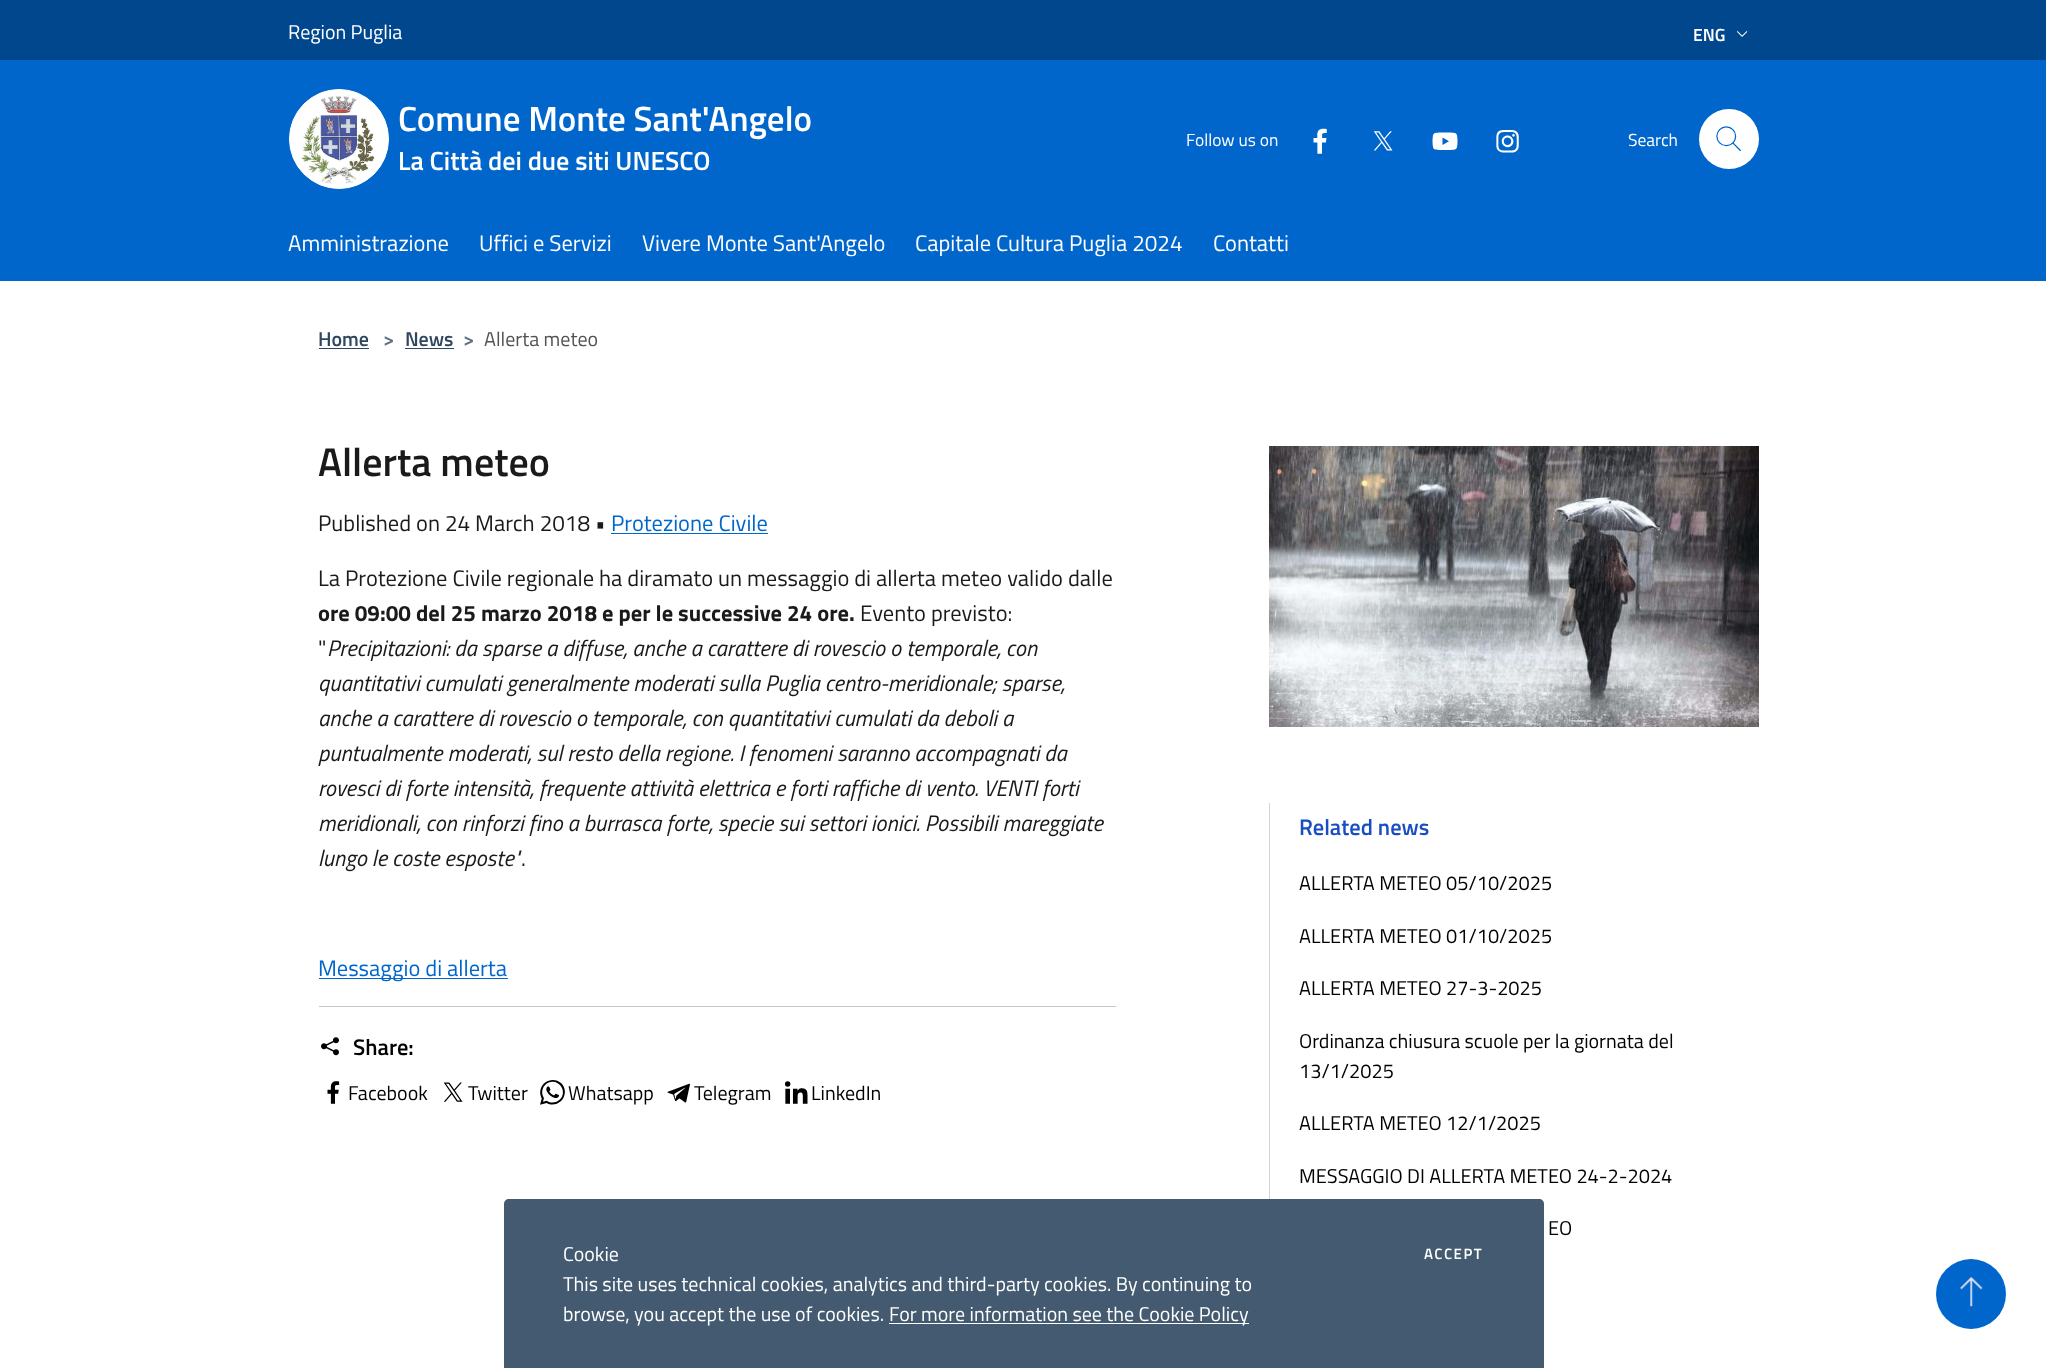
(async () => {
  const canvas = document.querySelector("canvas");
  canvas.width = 2046;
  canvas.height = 1368;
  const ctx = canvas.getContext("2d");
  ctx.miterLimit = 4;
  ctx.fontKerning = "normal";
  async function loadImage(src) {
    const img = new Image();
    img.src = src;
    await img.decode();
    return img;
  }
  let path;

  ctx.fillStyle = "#ffffff";
  ctx.fillRect(0, 0, 2046, 1368);
  ctx.fillStyle = "#00478e";
  ctx.fillRect(0, 0, 2046, 60);
  ctx.drawImage(await loadImage("img/1.png"), 1737, 31, 11, 6);
  ctx.fillStyle = "#0066cc";
  ctx.fillRect(0, 60, 2046, 221);
  ctx.fillStyle = "#ffffff";
  ctx.beginPath();
  ctx.arc(339, 139, 49.5, 0, Math.PI * 2);
  ctx.fill();
  ctx.strokeStyle = "#ffffff";
  ctx.stroke();
  ctx.drawImage(await loadImage("img/2.png"), 301, 95, 74, 89);
  ctx.drawImage(await loadImage("img/3.png"), 1313, 128, 14, 26);
  ctx.drawImage(await loadImage("img/4.png"), 1373, 131, 20, 20);
  ctx.drawImage(await loadImage("img/5.png"), 1432, 132, 26, 18);
  ctx.drawImage(await loadImage("img/6.png"), 1496, 130, 23, 23);
  ctx.beginPath();
  ctx.arc(1729, 139, 30, 0, Math.PI * 2);
  ctx.fill();
  ctx.drawImage(await loadImage("img/7.png"), 1716, 126, 25, 26);
  for (const [x, y, w, h, color] of [
    [319, 348, 50, 1, "#30475f"],
    [405, 348, 49, 1, "#30475f"],
    [611, 533, 157, 1, "#0066cc"],
    [319, 978, 189, 1, "#0066cc"],
    [319, 1006, 797, 1, "#c6c6c6"],
  ]) {
    ctx.fillStyle = color;
    ctx.fillRect(x, y, w, h);
  }
  ctx.drawImage(await loadImage("img/8.png"), 321, 1037, 18, 19);
  ctx.drawImage(await loadImage("img/9.png"), 327, 1081, 13, 23);
  ctx.drawImage(await loadImage("img/10.png"), 443, 1082, 20, 20);
  ctx.drawImage(await loadImage("img/11.png"), 540, 1080, 25, 25);
  ctx.drawImage(await loadImage("img/12.png"), 667, 1083, 23, 20);
  ctx.drawImage(await loadImage("img/13.png"), 785, 1081, 23, 23);
  ctx.drawImage(await loadImage("img/14.png"), 1269, 446, 490, 281);
  ctx.fillStyle = "#d3d3d3";
  ctx.fillRect(1269, 803, 1, 396);
  ctx.fillStyle = "#435a70";
  path = new Path2D("M509 1199H1539C1542 1199 1544 1201 1544 1204V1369H504V1204C504 1201 506 1199 509 1199Z");
  ctx.fill(path);
  ctx.fillStyle = "#ffffff";
  ctx.fillRect(889, 1323, 360, 1);
  ctx.fillStyle = "#0066cc";
  ctx.beginPath();
  ctx.arc(1971, 1294, 35, 0, Math.PI * 2);
  ctx.fill();
  ctx.drawImage(await loadImage("img/15.png"), 1960, 1277, 23, 30);
  ctx.font = "20px Titillium Web";
  ctx.fillStyle = "#ffffff";
  ctx.fillText("Region Puglia", 288, 39);
  ctx.font = "600 17.5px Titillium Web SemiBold";
  ctx.fillText("ENG", 1693, 41);
  ctx.font = "600 35px Titillium Web SemiBold";
  ctx.fillText("Comune Monte Sant'Angelo", 398, 131);
  ctx.font = "600 26.25px Titillium Web SemiBold";
  ctx.fillText("La Città dei due siti UNESCO", 398, 170);
  ctx.font = "17.5px Titillium Web";
  ctx.fillText("Follow us on", 1186, 146);
  ctx.fillText("Search", 1628, 146);
  ctx.font = "22.5px Titillium Web";
  for (const [text, x, y] of [
    ["Amministrazione", 288, 251],
    ["Uffici e Servizi", 479, 251],
    ["Vivere Monte Sant'Angelo", 642, 251],
    ["Capitale Cultura Puglia 2024", 915, 251],
    ["Contatti", 1213, 251],
  ]) {
    ctx.fillText(text, x, y);
  }
  ctx.font = "600 20px Titillium Web SemiBold";
  ctx.fillStyle = "#30475f";
  ctx.fillText("Home", 318, 346);
  ctx.fillStyle = "#5d7083";
  ctx.fillText(">", 383, 346);
  ctx.fillStyle = "#30475f";
  ctx.fillText("News", 405, 346);
  ctx.fillStyle = "#5d7083";
  ctx.fillText(">", 463, 346);
  ctx.font = "20px Titillium Web";
  ctx.fillStyle = "#525252";
  ctx.fillText("Allerta meteo", 484, 346);
  ctx.font = "600 40px Titillium Web SemiBold";
  ctx.fillStyle = "#1a1a1a";
  ctx.fillText("Allerta meteo", 318, 476);
  ctx.font = "22.5px Titillium Web";
  ctx.fillText("Published on 24 March 2018 •", 318, 531);
  ctx.fillStyle = "#0066cc";
  ctx.fillText("Protezione Civile", 611, 531);
  ctx.fillStyle = "#1a1a1a";
  ctx.fillText("La Protezione Civile regionale ha diramato un messaggio di allerta meteo valido dalle", 318, 586);
  ctx.font = "bold 22.5px Titillium Web";
  ctx.fillText("ore 09:00 del 25 marzo 2018 e per le successive 24 ore.", 318, 621);
  ctx.font = "22.5px Titillium Web";
  ctx.fillText("Evento previsto:", 860, 621);
  ctx.fillText("\"", 318, 656);
  ctx.font = "italic 22.5px Titillium Web";
  for (const [text, x, y] of [
    ["Precipitazioni: da sparse a diffuse, anche a carattere di rovescio o temporale, con", 327, 656],
    ["quantitativi cumulati generalmente moderati sulla Puglia centro-meridionale; sparse,", 318, 691],
    ["anche a carattere di rovescio o temporale, con quantitativi cumulati da deboli a", 318, 726],
    ["puntualmente moderati, sul resto della regione. I fenomeni saranno accompagnati da", 318, 761],
    ["rovesci di forte intensità, frequente attività elettrica e forti raffiche di vento. VENTI forti", 318, 796],
    ["meridionali, con rinforzi fino a burrasca forte, specie sui settori ionici. Possibili mareggiate", 318, 831],
    ["lungo le coste esposte\"", 318, 866],
  ]) {
    ctx.fillText(text, x, y);
  }
  ctx.font = "22.5px Titillium Web";
  ctx.fillText(".", 521, 866);
  ctx.fillStyle = "#0066cc";
  ctx.fillText("Messaggio di allerta", 318, 976);
  ctx.font = "600 22.5px Titillium Web SemiBold";
  ctx.fillStyle = "#000000";
  ctx.fillText("Share:", 353, 1055);
  ctx.font = "20px Titillium Web";
  for (const [text, x, y] of [
    ["Facebook", 348, 1100],
    ["Twitter", 468, 1100],
    ["Whatsapp", 568, 1100],
    ["Telegram", 694, 1100],
    ["LinkedIn", 811, 1100],
  ]) {
    ctx.fillText(text, x, y);
  }
  ctx.font = "600 22.5px Titillium Web SemiBold";
  ctx.fillStyle = "#194dc3";
  ctx.fillText("Related news", 1299, 835);
  ctx.font = "20px Titillium Web";
  ctx.fillStyle = "#000000";
  for (const [text, x, y] of [
    ["ALLERTA METEO 05/10/2025", 1299, 890],
    ["ALLERTA METEO 01/10/2025", 1299, 943],
    ["ALLERTA METEO 27-3-2025", 1299, 995],
    ["Ordinanza chiusura scuole per la giornata del", 1299, 1048],
    ["13/1/2025", 1299, 1078],
    ["ALLERTA METEO 12/1/2025", 1299, 1130],
    ["MESSAGGIO DI ALLERTA METEO 24-2-2024", 1299, 1183],
    ["EO", 1548, 1235],
  ]) {
    ctx.fillText(text, x, y);
  }
  ctx.fillStyle = "#ffffff";
  for (const [text, x, y] of [
    ["Cookie", 563, 1261],
    ["This site uses technical cookies, analytics and third-party cookies. By continuing to", 563, 1291],
    ["browse, you accept the use of cookies.", 563, 1321],
    ["For more information see the Cookie Policy", 889, 1321],
  ]) {
    ctx.fillText(text, x, y);
  }
  ctx.letterSpacing = "1.5px";
  ctx.font = "600 15px Titillium Web SemiBold";
  ctx.fillText("ACCEPT", 1424, 1259);
})();
